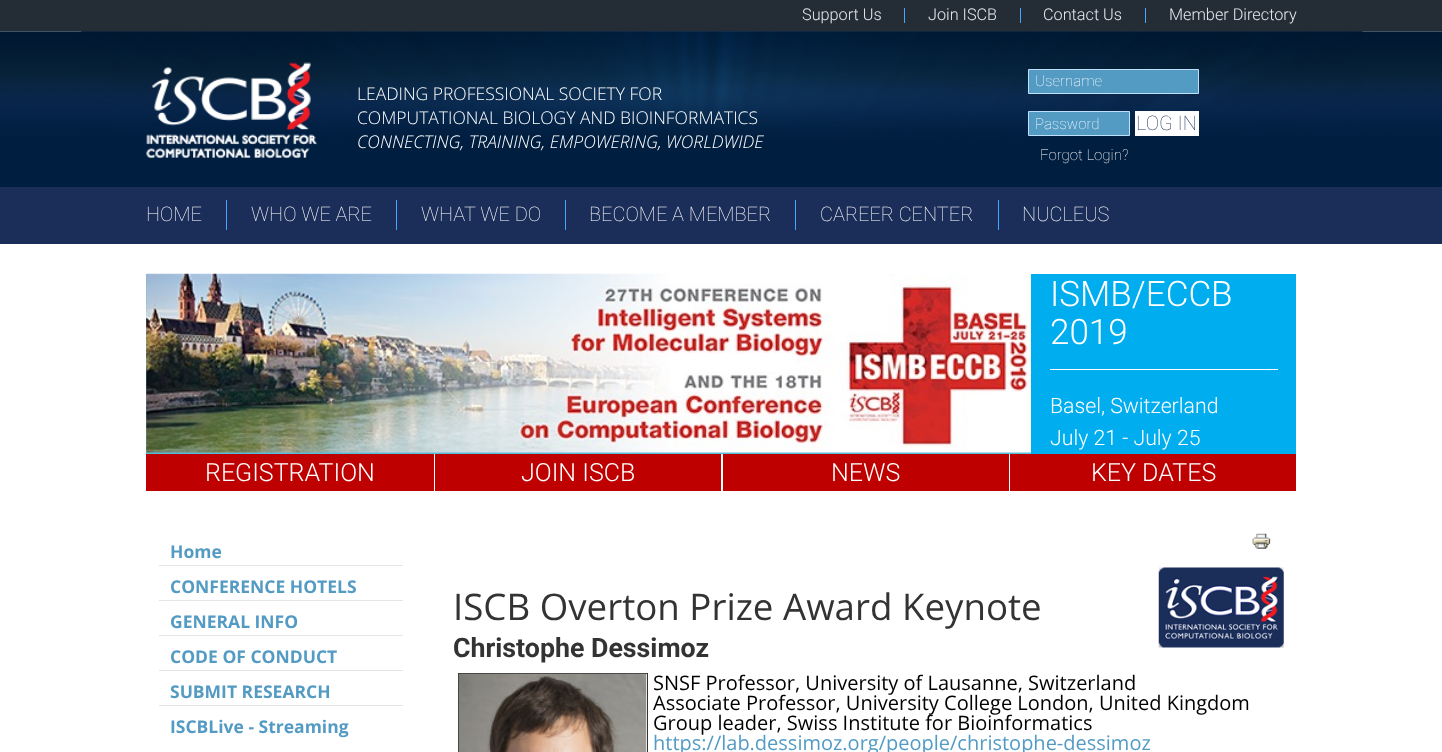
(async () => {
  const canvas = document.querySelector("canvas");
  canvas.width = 1442;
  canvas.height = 752;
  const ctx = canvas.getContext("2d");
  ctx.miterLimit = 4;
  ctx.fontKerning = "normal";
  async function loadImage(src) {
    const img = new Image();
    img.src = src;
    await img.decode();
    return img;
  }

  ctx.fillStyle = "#ffffff";
  ctx.fillRect(0, 0, 1442, 752);
  for (const [x, y, w, h, color] of [
    [0, 0, 1442, 31, "#242c35"],
    [904, 8, 1, 15, "#44a8ff"],
    [1020, 8, 1, 15, "#44a8ff"],
    [1145, 8, 1, 15, "#44a8ff"],
  ]) {
    ctx.fillStyle = color;
    ctx.fillRect(x, y, w, h);
  }
  ctx.drawImage(await loadImage("img/1.png"), 0, 31, 1442, 156);
  ctx.drawImage(await loadImage("img/2.png"), 81, 31, 1282, 156);
  ctx.drawImage(await loadImage("img/3.png"), 146, 62, 171, 97);
  ctx.fillStyle = "#549bc4";
  ctx.beginPath();
  ctx.rect(1028.5, 69.5, 170, 24);
  ctx.fill();
  ctx.strokeStyle = "#bee0ff";
  ctx.stroke();
  ctx.beginPath();
  ctx.rect(1028.5, 111.5, 101, 24);
  ctx.fill();
  ctx.stroke();
  for (const [x, y, w, h, color] of [
    [1135, 111, 64, 25, "#ffffff"],
    [0, 187, 1442, 57, "#1b2e59"],
    [226, 200, 1, 30, "#44a8ff"],
    [396, 200, 1, 30, "#44a8ff"],
    [565, 200, 1, 30, "#44a8ff"],
    [795, 200, 1, 30, "#44a8ff"],
    [998, 200, 1, 30, "#44a8ff"],
    [146, 274, 885, 180, "#5abcdb"],
  ]) {
    ctx.fillStyle = color;
    ctx.fillRect(x, y, w, h);
  }
  ctx.drawImage(await loadImage("img/4.png"), 146, 273, 886, 180);
  for (const [x, y, w, h, color] of [
    [1031, 274, 265, 180, "#00aeef"],
    [1050, 369, 228, 1, "#ffffff"],
    [146, 454, 288, 37, "#be0100"],
    [435, 454, 286, 37, "#be0100"],
    [723, 454, 286, 37, "#be0100"],
    [1010, 454, 286, 37, "#be0100"],
    [159, 565, 244, 1, "#e5e5e5"],
    [159, 600, 244, 1, "#e5e5e5"],
    [159, 635, 244, 1, "#e5e5e5"],
    [159, 670, 244, 1, "#e5e5e5"],
    [159, 705, 244, 1, "#e5e5e5"],
  ]) {
    ctx.fillStyle = color;
    ctx.fillRect(x, y, w, h);
  }
  ctx.drawImage(await loadImage("img/5.png"), 1252, 533, 19, 16);
  ctx.drawImage(await loadImage("img/6.png"), 1158, 567, 126, 81);
  ctx.strokeStyle = "#333333";
  ctx.strokeRect(458.5, 673.5, 189, 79);
  ctx.drawImage(await loadImage("img/7.png"), 458, 673, 189, 79);
  ctx.font = "300 16.25px Roboto";
  ctx.fillStyle = "#e6e9ef";
  for (const [text, x, y] of [
    ["Support Us", 802, 20],
    ["Join ISCB", 928, 20],
    ["Contact Us", 1043, 20],
    ["Member Directory", 1169, 20],
  ]) {
    ctx.fillText(text, x, y);
  }
  ctx.font = "300 17.5px Open Sans";
  ctx.fillStyle = "#ffffff";
  ctx.fillText("LEADING PROFESSIONAL SOCIETY FOR", 357, 100);
  ctx.fillText("COMPUTATIONAL BIOLOGY AND BIOINFORMATICS", 357, 124);
  ctx.font = "italic 300 17.5px Open Sans";
  ctx.fillText("CONNECTING, TRAINING, EMPOWERING, WORLDWIDE", 357, 148);
  ctx.font = "100 15px Roboto";
  ctx.fillText("Username", 1035, 86);
  ctx.fillText("Password", 1035, 129);
  ctx.font = "100 20px Roboto";
  ctx.fillStyle = "#1b2e5a";
  ctx.fillText("LOG IN", 1136, 130);
  ctx.font = "100 15px Roboto";
  ctx.fillStyle = "#ffffff";
  ctx.fillText("Forgot Login?", 1040, 160);
  ctx.font = "100 20px Roboto";
  for (const [text, x, y] of [
    ["HOME", 146, 221],
    ["WHO WE ARE", 251, 221],
    ["WHAT WE DO", 421, 221],
    ["BECOME A MEMBER", 589, 221],
    ["CAREER CENTER", 820, 221],
    ["NUCLEUS", 1022, 221],
  ]) {
    ctx.fillText(text, x, y);
  }
  ctx.font = "300 35px Roboto";
  ctx.fillText("ISMB/ECCB", 1050, 306);
  ctx.fillText("2019", 1050, 344);
  ctx.font = "300 21.25px Roboto";
  ctx.fillText("Basel, Switzerland", 1050, 413);
  ctx.fillText("July 21 - July 25", 1050, 445);
  ctx.font = "300 25px Roboto";
  for (const [text, x, y] of [
    ["REGISTRATION", 205, 481],
    ["JOIN ISCB", 521, 481],
    ["NEWS", 831, 481],
    ["KEY DATES", 1091, 481],
  ]) {
    ctx.fillText(text, x, y);
  }
  ctx.font = "bold 17.5px Open Sans";
  ctx.fillStyle = "#549bc4";
  for (const [text, x, y] of [
    ["Home", 170, 558],
    ["CONFERENCE HOTELS", 170, 593],
    ["GENERAL INFO", 170, 628],
    ["CODE OF CONDUCT", 170, 663],
    ["SUBMIT RESEARCH", 170, 698],
    ["ISCBLive - Streaming", 170, 733],
  ]) {
    ctx.fillText(text, x, y);
  }
  ctx.font = "36.7px Open Sans";
  ctx.fillStyle = "#333333";
  ctx.fillText("ISCB Overton Prize Award Keynote", 453, 620);
  ctx.font = "bold 26.75px Roboto";
  ctx.fillText("Christophe Dessimoz", 453, 657);
  ctx.font = "20px Open Sans";
  ctx.fillStyle = "#000000";
  for (const [text, x, y] of [
    ["SNSF Professor, University of Lausanne, Switzerland", 653, 690],
    ["Associate Professor, University College London, United Kingdom", 653, 710],
    ["Group leader, Swiss Institute for Bioinformatics", 653, 730],
  ]) {
    ctx.fillText(text, x, y);
  }
  ctx.fillStyle = "#549bc4";
  ctx.fillText("https://lab.dessimoz.org/people/christophe-dessimoz", 653, 750);
})();
